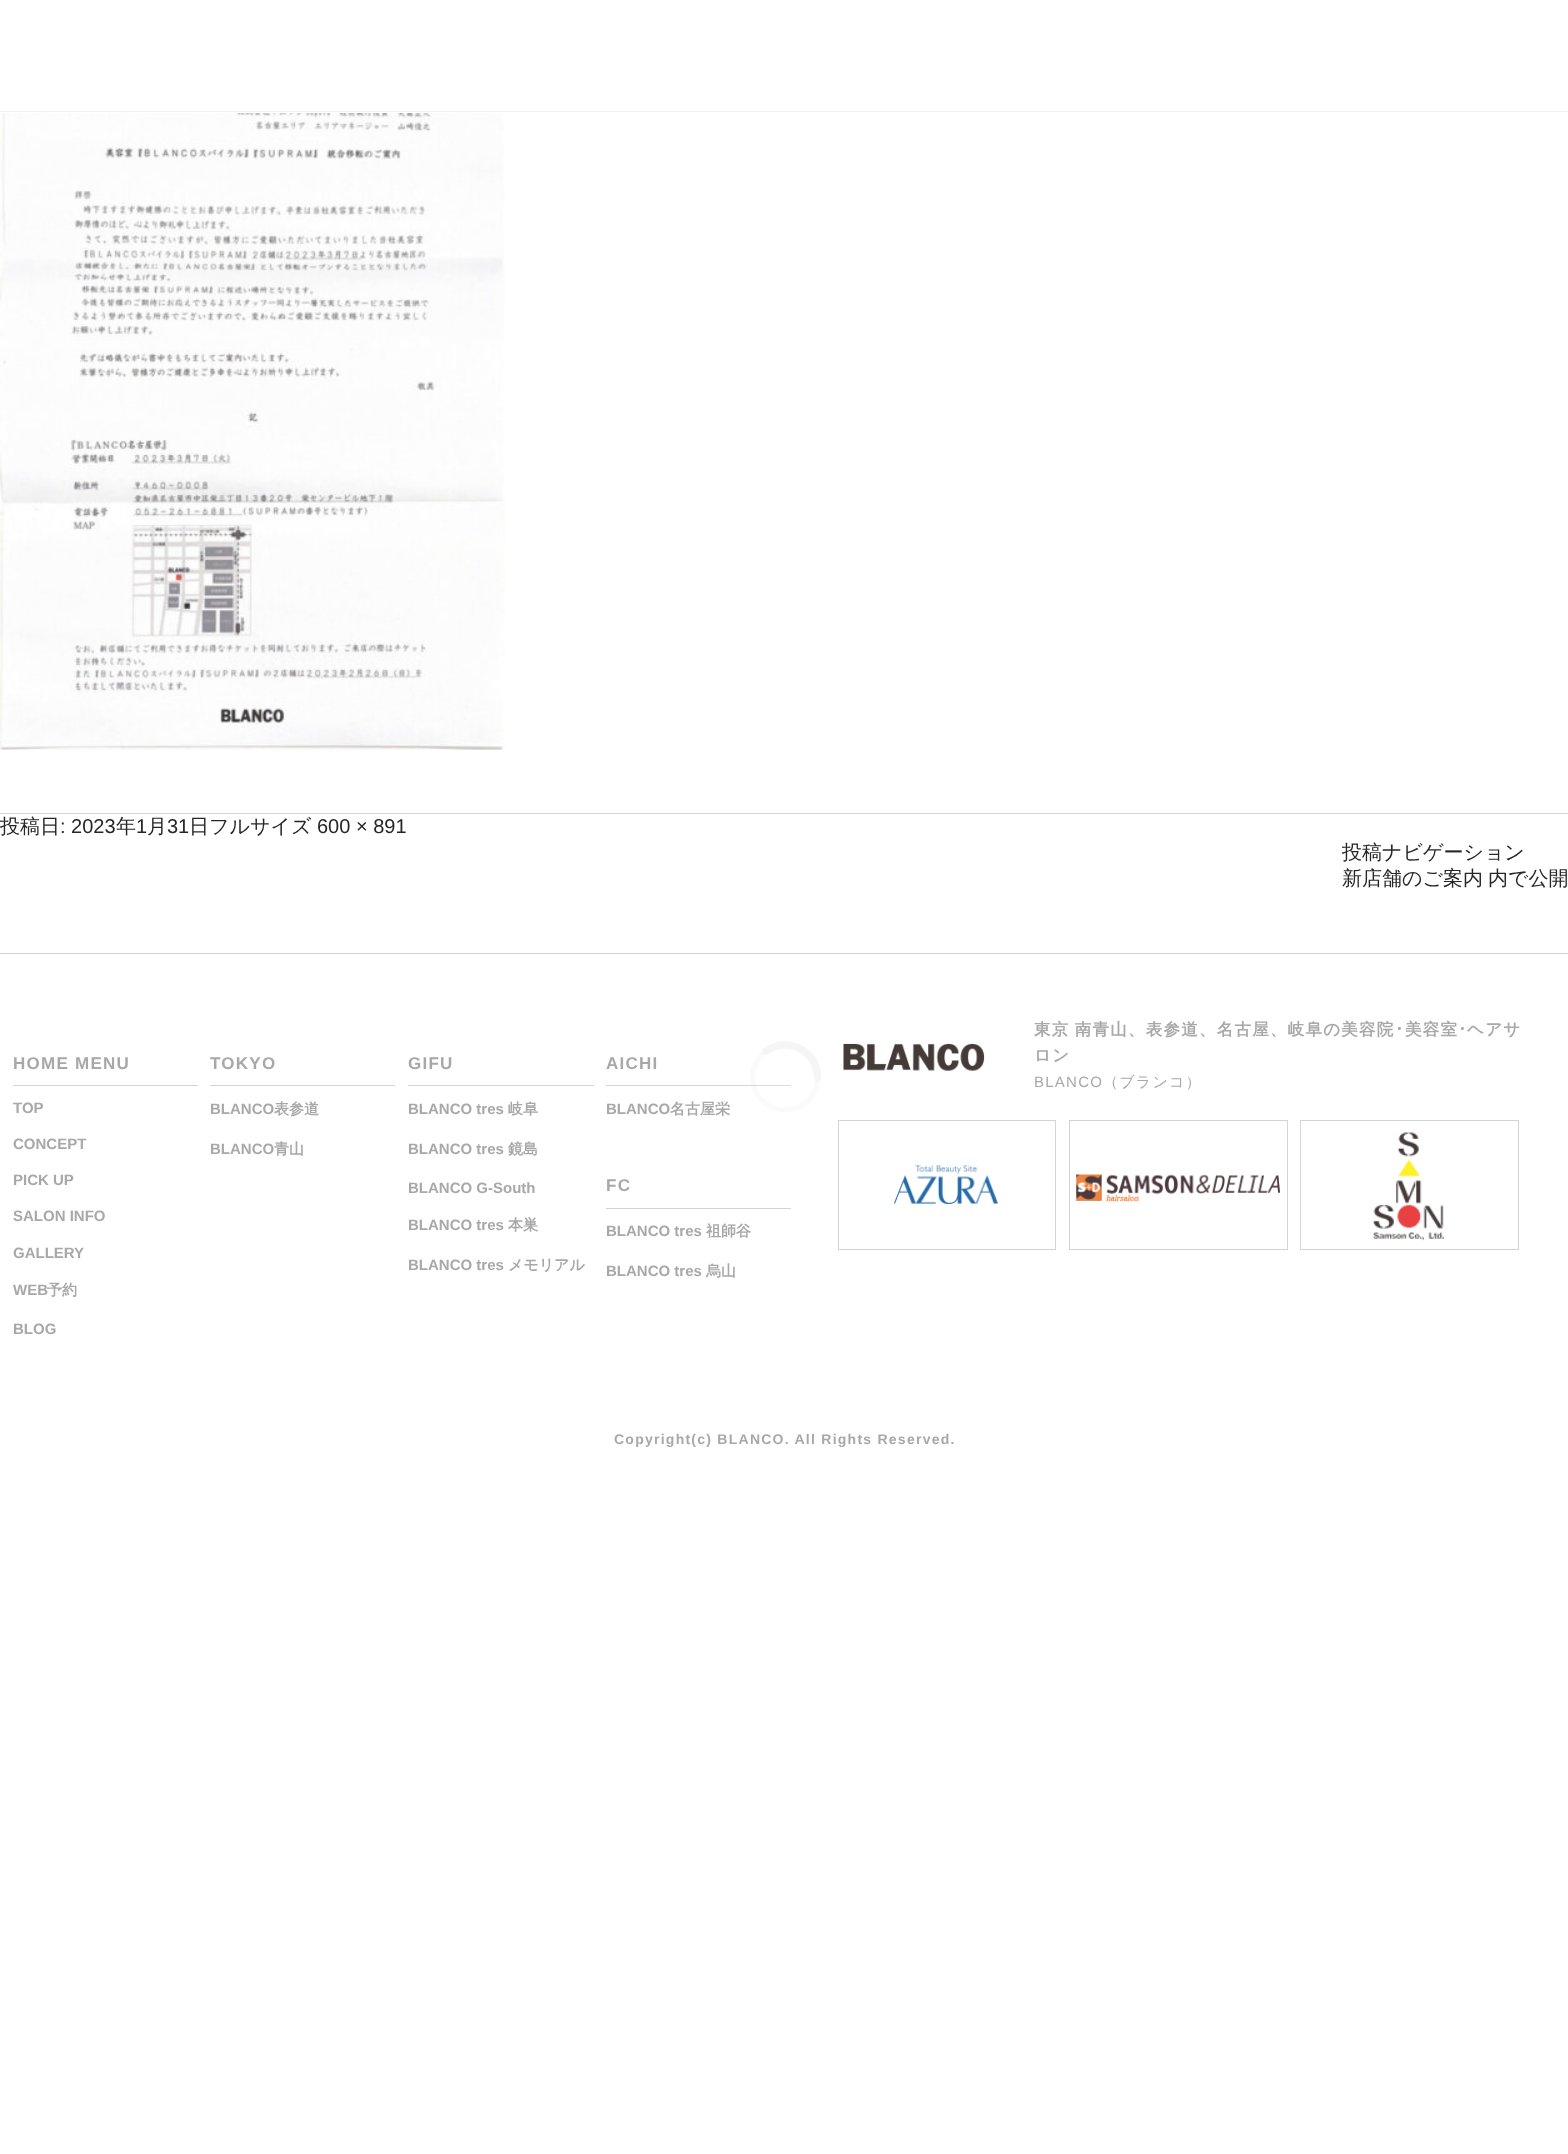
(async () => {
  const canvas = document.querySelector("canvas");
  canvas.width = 1568;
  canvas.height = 2154;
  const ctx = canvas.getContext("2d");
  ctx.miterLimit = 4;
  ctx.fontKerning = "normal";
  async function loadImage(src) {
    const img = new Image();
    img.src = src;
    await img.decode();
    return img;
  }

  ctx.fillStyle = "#ffffff";
  ctx.fillRect(0, 0, 1568, 2154);
  ctx.fillStyle = "#f1f1f1";
  ctx.fillRect(0, 111, 1568, 1);
  ctx.drawImage(await loadImage("img/1.png"), 0, 113, 505, 637);
  for (const [x, y, w, h, color] of [
    [0, 813, 1568, 1, "#d4d4d4"],
    [0, 953, 1568, 1, "#d4d4d4"],
    [13, 1085, 185, 1, "#d4d4d4"],
    [210, 1085, 185, 1, "#d4d4d4"],
    [408, 1085, 186, 1, "#d4d4d4"],
    [606, 1085, 185, 1, "#d4d4d4"],
    [606, 1208, 185, 1, "#d4d4d4"],
  ]) {
    ctx.fillStyle = color;
    ctx.fillRect(x, y, w, h);
  }
  ctx.drawImage(await loadImage("img/2.png"), 843, 1043, 142, 28);
  ctx.strokeStyle = "#d4d4d4";
  ctx.strokeRect(838.5, 1120.5, 217, 129);
  ctx.drawImage(await loadImage("img/3.png"), 893, 1165, 105, 39);
  ctx.strokeRect(1069.5, 1120.5, 218, 129);
  ctx.drawImage(await loadImage("img/4.png"), 1076, 1174, 204, 28);
  ctx.strokeRect(1300.5, 1120.5, 218, 129);
  ctx.drawImage(await loadImage("img/5.png"), 1373, 1132, 71, 109);
  ctx.drawImage(await loadImage("img/6.png"), 748, 1041, 73, 71);
  ctx.font = "500 20px WenQuanYi Zen Hei";
  ctx.fillStyle = "#262626";
  ctx.fillText("投稿日", 0, 833);
  ctx.font = "20px Liberation Sans";
  ctx.fillText(": 2023", 60, 833);
  ctx.font = "500 20px WenQuanYi Zen Hei";
  ctx.fillText("年", 116, 833);
  ctx.font = "20px Liberation Sans";
  ctx.fillText("1", 136, 833);
  ctx.font = "500 20px WenQuanYi Zen Hei";
  ctx.fillText("月", 147, 833);
  ctx.font = "20px Liberation Sans";
  ctx.fillText("31", 167, 833);
  ctx.font = "500 20px WenQuanYi Zen Hei";
  ctx.fillText("日フルサイズ", 189, 833);
  ctx.font = "20px Liberation Sans";
  ctx.fillText("600 × 891", 317, 833);
  ctx.font = "500 20px WenQuanYi Zen Hei";
  for (const [text, x, y] of [
    ["投稿ナビゲーション", 1342, 859],
    ["新店舗のご案内", 1342, 885],
    ["内で公開", 1488, 885],
  ]) {
    ctx.fillText(text, x, y);
  }
  ctx.letterSpacing = "1.25px";
  ctx.font = "bold 17px Liberation Sans";
  ctx.fillStyle = "#a8a8a8";
  ctx.fillText("HOME MENU", 13, 1069);
  ctx.save();
  ctx.beginPath();
  ctx.rect(13, 1016, 1543, 340);
  ctx.clip();
  ctx.letterSpacing = "0px";
  ctx.font = "bold 15px Liberation Sans";
  ctx.fillText("TOP", 13, 1113);
  ctx.restore();
  ctx.letterSpacing = "0px";
  ctx.font = "bold 15px Liberation Sans";
  for (const [text, x, y] of [
    ["CONCEPT", 13, 1149],
    ["PICK UP", 13, 1185],
    ["SALON INFO", 13, 1221],
    ["GALLERY", 13, 1258],
    ["WEB", 13, 1295],
  ]) {
    ctx.fillText(text, x, y);
  }
  ctx.font = "bold 15px WenQuanYi Zen Hei";
  ctx.fillText("予約", 47, 1295);
  ctx.font = "bold 15px Liberation Sans";
  ctx.fillText("BLOG", 13, 1334);
  ctx.letterSpacing = "1.25px";
  ctx.font = "bold 17px Liberation Sans";
  ctx.fillText("TOKYO", 210, 1069);
  ctx.letterSpacing = "0px";
  ctx.font = "bold 15px Liberation Sans";
  ctx.fillText("BLANCO", 210, 1114);
  ctx.font = "bold 15px WenQuanYi Zen Hei";
  ctx.fillText("表参道", 274, 1114);
  ctx.font = "bold 15px Liberation Sans";
  ctx.fillText("BLANCO", 210, 1154);
  ctx.font = "bold 15px WenQuanYi Zen Hei";
  ctx.fillText("青山", 274, 1154);
  ctx.letterSpacing = "1.25px";
  ctx.font = "bold 17px Liberation Sans";
  ctx.fillText("GIFU", 408, 1069);
  ctx.letterSpacing = "0px";
  ctx.font = "bold 15px Liberation Sans";
  ctx.fillText("BLANCO tres", 408, 1114);
  ctx.font = "bold 15px WenQuanYi Zen Hei";
  ctx.fillText("岐阜", 508, 1114);
  ctx.font = "bold 15px Liberation Sans";
  ctx.fillText("BLANCO tres", 408, 1154);
  ctx.font = "bold 15px WenQuanYi Zen Hei";
  ctx.fillText("鏡島", 508, 1154);
  ctx.font = "bold 15px Liberation Sans";
  ctx.fillText("BLANCO G-South", 408, 1193);
  ctx.fillText("BLANCO tres", 408, 1230);
  ctx.font = "bold 15px WenQuanYi Zen Hei";
  ctx.fillText("本巣", 508, 1230);
  ctx.font = "bold 15px Liberation Sans";
  ctx.fillText("BLANCO tres", 408, 1270);
  ctx.font = "bold 15px WenQuanYi Zen Hei";
  ctx.fillText("メモリアル", 508, 1270);
  ctx.letterSpacing = "1.25px";
  ctx.font = "bold 17px Liberation Sans";
  ctx.fillText("AICHI", 606, 1069);
  ctx.letterSpacing = "0px";
  ctx.font = "bold 15px Liberation Sans";
  ctx.fillText("BLANCO", 606, 1114);
  ctx.font = "bold 15px WenQuanYi Zen Hei";
  ctx.fillText("名古屋栄", 670, 1114);
  ctx.letterSpacing = "1.25px";
  ctx.font = "bold 17px Liberation Sans";
  ctx.fillText("FC", 606, 1191);
  ctx.letterSpacing = "0px";
  ctx.font = "bold 15px Liberation Sans";
  ctx.fillText("BLANCO tres", 606, 1236);
  ctx.font = "bold 15px WenQuanYi Zen Hei";
  ctx.fillText("祖師谷", 706, 1236);
  ctx.font = "bold 15px Liberation Sans";
  ctx.fillText("BLANCO tres", 606, 1276);
  ctx.font = "bold 15px WenQuanYi Zen Hei";
  ctx.fillText("烏山", 706, 1276);
  ctx.letterSpacing = "1.25px";
  ctx.wordSpacing = "-1px";
  ctx.font = "bold 16.5px WenQuanYi Zen Hei";
  ctx.fillText("東京 南青山、表参道、名古屋、岐阜の美容院", 1034, 1035);
  ctx.wordSpacing = "0px";
  ctx.font = "bold 16.5px IPAPGothic";
  ctx.fillText("･", 1395, 1035);
  ctx.font = "bold 16.5px WenQuanYi Zen Hei";
  ctx.fillText("美容室", 1405, 1035);
  ctx.font = "bold 16.5px IPAPGothic";
  ctx.fillText("･", 1458, 1035);
  ctx.font = "bold 16.5px WenQuanYi Zen Hei";
  ctx.fillText("ヘアサ", 1467, 1035);
  ctx.fillText("ロン", 1034, 1061);
  ctx.font = "15px Liberation Sans";
  ctx.fillText("BLANCO", 1034, 1087);
  ctx.font = "500 15px WenQuanYi Zen Hei";
  ctx.fillText("（ブランコ）", 1103, 1087);
  ctx.font = "bold 14px Liberation Sans";
  ctx.fillText("Copyright(c) BLANCO. All Rights Reserved.", 614, 1444);
})();
